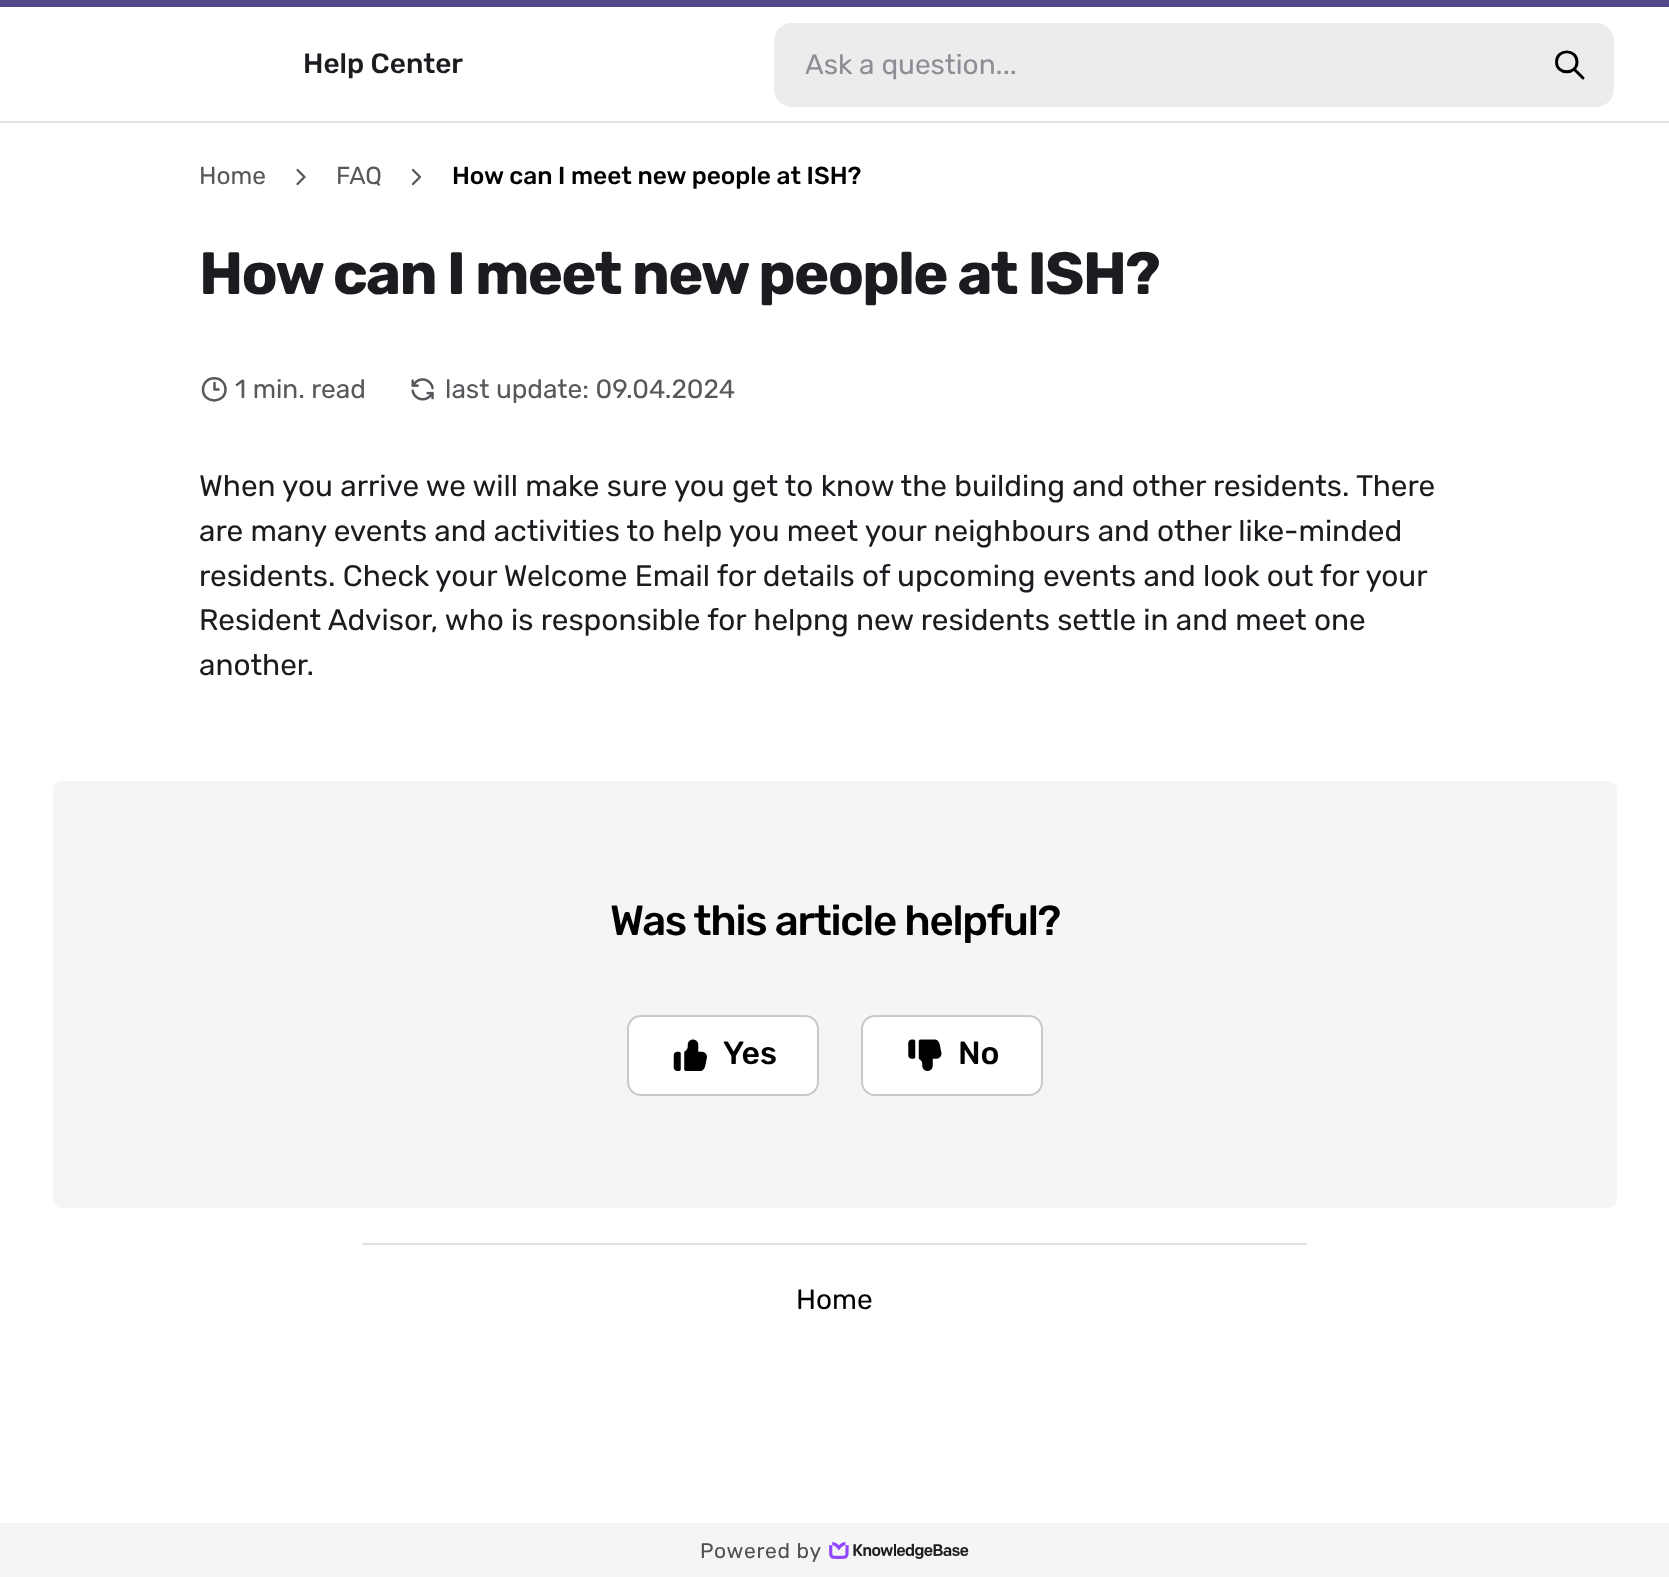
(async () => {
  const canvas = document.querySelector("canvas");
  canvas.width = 1669;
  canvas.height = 1577;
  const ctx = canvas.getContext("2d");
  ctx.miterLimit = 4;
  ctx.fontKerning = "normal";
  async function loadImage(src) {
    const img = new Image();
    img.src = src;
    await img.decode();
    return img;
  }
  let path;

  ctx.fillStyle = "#ffffff";
  ctx.fillRect(0, 0, 1669, 1577);
  ctx.fillStyle = "#514789";
  ctx.fillRect(0, 0, 1669, 7);
  ctx.fillStyle = "#e2e2e4";
  ctx.fillRect(0, 121, 1669, 2);
  ctx.fillStyle = "#ececec";
  ctx.beginPath();
  ctx.roundRect(774, 23, 840, 84, 18);
  ctx.fill();
  path = new Path2D("M1556.5 62C1556.5 75 1577 75 1577 62C1577 48.5 1556.5 48.5 1556.5 62M1583 78L1574 69");
  ctx.strokeStyle = "#000000";
  ctx.lineWidth = 2.9;
  ctx.lineCap = "round";
  ctx.lineJoin = "round";
  ctx.stroke(path);
  path = new Path2D("M297.5 170L304.5 177L297.5 184");
  ctx.strokeStyle = "#57575c";
  ctx.lineWidth = 2.3;
  ctx.stroke(path);
  path = new Path2D("M413 170L420 177L413 184");
  ctx.stroke(path);
  path = new Path2D("M203 389.5C203 404 225.5 404 225.5 389.5C225.5 374.5 203 374.5 203 389.5M214.5 389.5H218.5M214.5 383V389.5");
  ctx.lineWidth = 2.5;
  ctx.stroke(path);
  ctx.drawImage(await loadImage("img/1.png"), 411, 378, 23, 23);
  ctx.fillStyle = "#f5f5f5";
  ctx.beginPath();
  ctx.roundRect(53, 781, 1564, 427, 9);
  ctx.fill();
  ctx.fillStyle = "#ffffff";
  ctx.beginPath();
  ctx.roundRect(628, 1016, 190, 79, 13);
  ctx.fill();
  ctx.strokeStyle = "#c9c9cd";
  ctx.lineWidth = 2;
  ctx.lineJoin = "miter";
  ctx.stroke();
  ctx.drawImage(await loadImage("img/2.png"), 673, 1039, 34, 32);
  ctx.beginPath();
  ctx.roundRect(862, 1016, 180, 79, 13);
  ctx.fill();
  ctx.stroke();
  ctx.drawImage(await loadImage("img/3.png"), 908, 1039, 34, 32);
  ctx.fillStyle = "#e2e2e4";
  ctx.fillRect(362, 1243, 945, 2);
  ctx.fillStyle = "#f5f5f5";
  ctx.fillRect(0, 1523, 1669, 54);
  ctx.drawImage(await loadImage("img/4.png"), 829, 1542, 140, 17);
  ctx.font = "500 28px Rubik";
  ctx.fillStyle = "#1b1b20";
  ctx.fillText("Help Center", 303, 73);
  ctx.font = "28px Rubik";
  ctx.fillStyle = "#8d8d95";
  ctx.fillText("Ask a question...", 805, 74);
  ctx.font = "24.5px Rubik";
  ctx.fillStyle = "#57575c";
  ctx.fillText("Home", 199, 184);
  ctx.fillText("FAQ", 336, 184);
  ctx.font = "500 24.5px Rubik";
  ctx.fillStyle = "#000000";
  ctx.fillText("How can I meet new people at ISH?", 452, 184);
  ctx.letterSpacing = "-1.8px";
  ctx.font = "bold 59.5px Rubik";
  ctx.fillStyle = "#1b1b20";
  ctx.fillText("How can I meet new people at ISH?", 199, 294);
  ctx.letterSpacing = "0px";
  ctx.font = "26.25px Rubik";
  ctx.fillStyle = "#57575c";
  ctx.fillText("1 min. read", 235, 398);
  ctx.fillText("last update: 09.04.2024", 445, 398);
  ctx.font = "29.75px Rubik";
  ctx.fillStyle = "#1b1b20";
  for (const [text, x, y] of [
    ["When you arrive we will make sure you get to know the building and other residents. There", 199, 496],
    ["are many events and activities to help you meet your neighbours and other like-minded", 199, 541],
    ["residents. Check your Welcome Email for details of upcoming events and look out for your", 199, 586],
    ["Resident Advisor, who is responsible for helpng new residents settle in and meet one", 199, 630],
    ["another.", 199, 675],
  ]) {
    ctx.fillText(text, x, y);
  }
  ctx.letterSpacing = "-1.25px";
  ctx.font = "500 42px Rubik";
  ctx.fillStyle = "#000000";
  ctx.fillText("Was this article helpful?", 610, 935);
  ctx.letterSpacing = "0px";
  ctx.font = "500 32px Rubik";
  ctx.fillText("Yes", 723, 1064);
  ctx.fillText("No", 958, 1064);
  ctx.font = "28px Rubik";
  ctx.fillText("Home", 796, 1309);
  ctx.letterSpacing = "0.75px";
  ctx.font = "21px Rubik";
  ctx.fillStyle = "#4f4f4f";
  ctx.fillText("Powered by", 700, 1558);
})();
